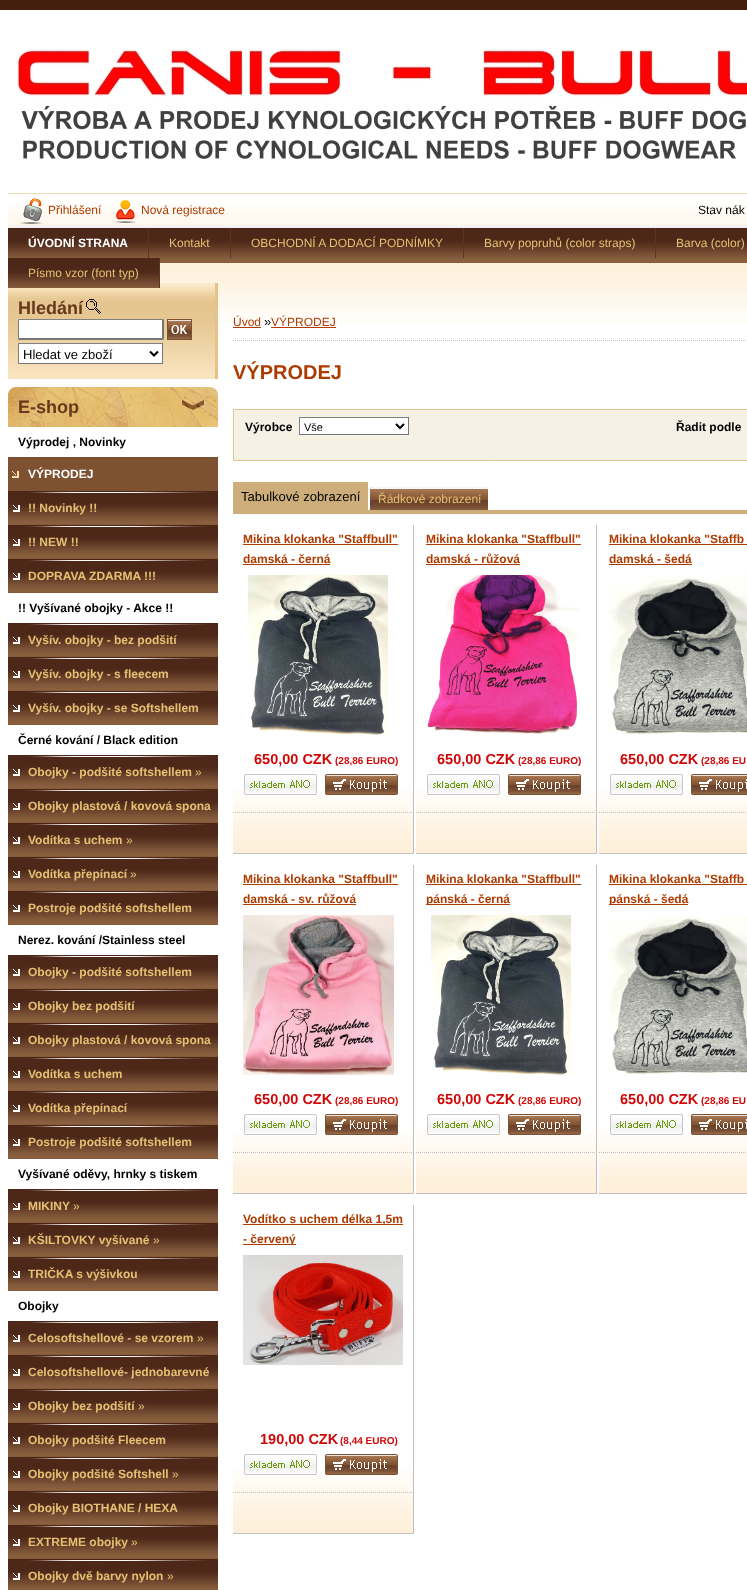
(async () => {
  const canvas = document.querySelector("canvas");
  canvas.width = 747;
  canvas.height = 1590;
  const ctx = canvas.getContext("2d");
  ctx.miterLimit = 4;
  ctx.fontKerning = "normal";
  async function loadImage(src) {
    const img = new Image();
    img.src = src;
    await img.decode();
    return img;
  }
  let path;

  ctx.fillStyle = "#ffffff";
  ctx.fillRect(0, 0, 747, 1590);
  ctx.drawImage(await loadImage("img/1.png"), 0, 0, 747, 10);
  ctx.drawImage(await loadImage("img/2.png"), 17, 49, 730, 110);
  ctx.drawImage(await loadImage("img/3.png"), 8, 193, 739, 35);
  ctx.drawImage(await loadImage("img/4.png"), 20, 198, 23, 26);
  ctx.drawImage(await loadImage("img/5.png"), 114, 200, 22, 23);
  ctx.drawImage(await loadImage("img/6.png"), 8, 228, 739, 35);
  for (const [x, y, w, h, color] of [
    [148, 228, 1, 30, "#5b3421"],
    [230, 228, 1, 30, "#5b3421"],
    [463, 228, 1, 30, "#5b3421"],
    [655, 228, 1, 30, "#5b3421"],
  ]) {
    ctx.fillStyle = color;
    ctx.fillRect(x, y, w, h);
  }
  ctx.drawImage(await loadImage("img/8.png"), 160, 263, 587, 61);
  ctx.drawImage(await loadImage("img/9.png"), 8, 283, 210, 96);
  ctx.drawImage(await loadImage("img/7.png"), 8, 258, 151, 30);
  ctx.fillRect(159, 258, 1, 30);
  ctx.drawImage(await loadImage("img/10.png"), 86, 299, 15, 15);
  ctx.fillStyle = "#ffffff";
  ctx.fillRect(18, 319, 146, 21);
  ctx.fillStyle = "#808080";
  path = new Path2D("M18 319H164L162 320H19Z");
  ctx.fill(path);
  ctx.fillStyle = "#767676";
  path = new Path2D("M164 319V340L162 338V320Z");
  ctx.fill(path);
  path = new Path2D("M164 340H18L19 338H162Z");
  ctx.fill(path);
  ctx.fillStyle = "#808080";
  path = new Path2D("M18 340V319L19 320V338Z");
  ctx.fill(path);
  ctx.drawImage(await loadImage("img/11.png"), 167, 319, 25, 21);
  for (const [x, y, w, h, color] of [
    [19, 344, 143, 19, "#ffffff"],
    [18, 343, 145, 1, "#808080"],
    [162, 343, 1, 21, "#767676"],
    [18, 363, 145, 1, "#767676"],
    [18, 343, 1, 21, "#808080"],
  ]) {
    ctx.fillStyle = color;
    ctx.fillRect(x, y, w, h);
  }
  path = new Path2D("M150 351.5L154 355.5L158 351.5");
  ctx.strokeStyle = "#000000";
  ctx.lineWidth = 2;
  ctx.stroke(path);
  ctx.drawImage(await loadImage("img/12.png"), 8, 387, 210, 40);
  ctx.drawImage(await loadImage("img/13.png"), 8, 457, 210, 34);
  ctx.drawImage(await loadImage("img/14.png"), 8, 491, 210, 34);
  ctx.drawImage(await loadImage("img/14.png"), 8, 525, 210, 34);
  ctx.drawImage(await loadImage("img/14.png"), 8, 559, 210, 34);
  ctx.drawImage(await loadImage("img/14.png"), 8, 623, 210, 34);
  ctx.drawImage(await loadImage("img/14.png"), 8, 657, 210, 34);
  ctx.drawImage(await loadImage("img/14.png"), 8, 691, 210, 34);
  ctx.drawImage(await loadImage("img/14.png"), 8, 755, 210, 34);
  ctx.drawImage(await loadImage("img/14.png"), 8, 789, 210, 34);
  ctx.drawImage(await loadImage("img/14.png"), 8, 823, 210, 34);
  ctx.drawImage(await loadImage("img/14.png"), 8, 857, 210, 34);
  ctx.drawImage(await loadImage("img/14.png"), 8, 891, 210, 34);
  ctx.drawImage(await loadImage("img/14.png"), 8, 955, 210, 34);
  ctx.drawImage(await loadImage("img/14.png"), 8, 989, 210, 34);
  ctx.drawImage(await loadImage("img/14.png"), 8, 1023, 210, 34);
  ctx.drawImage(await loadImage("img/14.png"), 8, 1057, 210, 34);
  ctx.drawImage(await loadImage("img/14.png"), 8, 1091, 210, 34);
  ctx.drawImage(await loadImage("img/14.png"), 8, 1125, 210, 34);
  ctx.drawImage(await loadImage("img/14.png"), 8, 1189, 210, 34);
  ctx.drawImage(await loadImage("img/14.png"), 8, 1223, 210, 34);
  ctx.drawImage(await loadImage("img/14.png"), 8, 1257, 210, 34);
  ctx.drawImage(await loadImage("img/14.png"), 8, 1321, 210, 34);
  ctx.drawImage(await loadImage("img/14.png"), 8, 1355, 210, 34);
  ctx.drawImage(await loadImage("img/14.png"), 8, 1389, 210, 34);
  ctx.drawImage(await loadImage("img/14.png"), 8, 1423, 210, 34);
  ctx.drawImage(await loadImage("img/14.png"), 8, 1457, 210, 34);
  ctx.drawImage(await loadImage("img/14.png"), 8, 1491, 210, 34);
  ctx.drawImage(await loadImage("img/14.png"), 8, 1525, 210, 34);
  ctx.drawImage(await loadImage("img/15.png"), 8, 1559, 210, 31);
  path = new Path2D("M233 340.5H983");
  ctx.strokeStyle = "#c0c0c0";
  ctx.lineWidth = 1;
  ctx.setLineDash([1, 1]);
  ctx.stroke(path);
  ctx.fillStyle = "#ae3b02";
  ctx.fillRect(233, 327, 28, 1);
  ctx.fillRect(271, 327, 65, 1);
  ctx.fillStyle = "#f5f1e5";
  ctx.beginPath();
  ctx.rect(233.5, 409.5, 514, 51);
  ctx.fill();
  ctx.strokeStyle = "#e4c48d";
  ctx.setLineDash([]);
  ctx.stroke();
  for (const [x, y, w, h, color] of [
    [300, 418, 108, 16, "#ffffff"],
    [299, 417, 110, 1, "#808080"],
    [408, 417, 1, 18, "#767676"],
    [299, 434, 110, 1, "#767676"],
    [299, 417, 1, 18, "#808080"],
  ]) {
    ctx.fillStyle = color;
    ctx.fillRect(x, y, w, h);
  }
  path = new Path2D("M396 424L400 428L404 424");
  ctx.strokeStyle = "#000000";
  ctx.lineWidth = 2;
  ctx.stroke(path);
  ctx.fillStyle = "#cdae7b";
  ctx.fillRect(233, 482, 135, 28);
  ctx.fillStyle = "#e7e7e7";
  ctx.fillRect(370, 487, 3, 3);
  ctx.drawImage(await loadImage("img/16.png"), 370, 487, 118, 23);
  ctx.fillStyle = "#cdae7b";
  ctx.fillRect(233, 510, 514, 4);
  ctx.drawImage(await loadImage("img/17.png"), 233, 790, 180, 63);
  for (const [x, y, w, h, color] of [
    [413, 525, 1, 329, "#c0c0c0"],
    [233, 853, 181, 1, "#c0c0c0"],
    [243, 544, 155, 1, "#ae3b02"],
    [243, 564, 87, 1, "#ae3b02"],
  ]) {
    ctx.fillStyle = color;
    ctx.fillRect(x, y, w, h);
  }
  ctx.drawImage(await loadImage("img/18.png"), 248, 575, 140, 160);
  ctx.drawImage(await loadImage("img/19.png"), 244, 774, 73, 21);
  ctx.drawImage(await loadImage("img/20.png"), 325, 774, 73, 21);
  path = new Path2D("M233 812.5H413");
  ctx.strokeStyle = "#c0c0c0";
  ctx.lineWidth = 1;
  ctx.setLineDash([1, 1]);
  ctx.stroke(path);
  ctx.drawImage(await loadImage("img/17.png"), 416, 790, 180, 63);
  for (const [x, y, w, h, color] of [
    [596, 525, 1, 329, "#c0c0c0"],
    [416, 853, 181, 1, "#c0c0c0"],
    [426, 544, 155, 1, "#ae3b02"],
    [426, 564, 94, 1, "#ae3b02"],
  ]) {
    ctx.fillStyle = color;
    ctx.fillRect(x, y, w, h);
  }
  ctx.drawImage(await loadImage("img/21.png"), 427, 575, 152, 159);
  ctx.drawImage(await loadImage("img/19.png"), 427, 774, 73, 21);
  ctx.drawImage(await loadImage("img/20.png"), 508, 774, 73, 21);
  path = new Path2D("M416 812.5H596");
  ctx.stroke(path);
  ctx.drawImage(await loadImage("img/22.png"), 599, 790, 148, 63);
  for (const [x, y, w, h, color] of [
    [599, 853, 148, 1, "#c0c0c0"],
    [609, 544, 138, 1, "#ae3b02"],
    [609, 564, 83, 1, "#ae3b02"],
  ]) {
    ctx.fillStyle = color;
    ctx.fillRect(x, y, w, h);
  }
  ctx.drawImage(await loadImage("img/23.png"), 610, 575, 137, 160);
  ctx.drawImage(await loadImage("img/19.png"), 610, 774, 73, 21);
  ctx.drawImage(await loadImage("img/24.png"), 691, 774, 56, 21);
  path = new Path2D("M599 812.5H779");
  ctx.stroke(path);
  ctx.drawImage(await loadImage("img/17.png"), 233, 1130, 180, 63);
  for (const [x, y, w, h, color] of [
    [413, 865, 1, 329, "#c0c0c0"],
    [233, 1193, 181, 1, "#c0c0c0"],
    [243, 884, 155, 1, "#ae3b02"],
    [243, 904, 113, 1, "#ae3b02"],
  ]) {
    ctx.fillStyle = color;
    ctx.fillRect(x, y, w, h);
  }
  ctx.drawImage(await loadImage("img/25.png"), 243, 915, 151, 160);
  ctx.drawImage(await loadImage("img/19.png"), 244, 1114, 73, 21);
  ctx.drawImage(await loadImage("img/20.png"), 325, 1114, 73, 21);
  path = new Path2D("M233 1152.5H413");
  ctx.stroke(path);
  ctx.drawImage(await loadImage("img/17.png"), 416, 1130, 180, 63);
  for (const [x, y, w, h, color] of [
    [596, 865, 1, 329, "#c0c0c0"],
    [416, 1193, 181, 1, "#c0c0c0"],
    [426, 884, 155, 1, "#ae3b02"],
    [426, 904, 84, 1, "#ae3b02"],
  ]) {
    ctx.fillStyle = color;
    ctx.fillRect(x, y, w, h);
  }
  ctx.drawImage(await loadImage("img/26.png"), 431, 915, 140, 160);
  ctx.drawImage(await loadImage("img/19.png"), 427, 1114, 73, 21);
  ctx.drawImage(await loadImage("img/20.png"), 508, 1114, 73, 21);
  path = new Path2D("M416 1152.5H596");
  ctx.stroke(path);
  ctx.drawImage(await loadImage("img/22.png"), 599, 1130, 148, 63);
  for (const [x, y, w, h, color] of [
    [599, 1193, 148, 1, "#c0c0c0"],
    [609, 884, 138, 1, "#ae3b02"],
    [609, 904, 79, 1, "#ae3b02"],
  ]) {
    ctx.fillStyle = color;
    ctx.fillRect(x, y, w, h);
  }
  ctx.drawImage(await loadImage("img/23.png"), 610, 915, 137, 160);
  ctx.drawImage(await loadImage("img/19.png"), 610, 1114, 73, 21);
  ctx.drawImage(await loadImage("img/24.png"), 691, 1114, 56, 21);
  path = new Path2D("M599 1152.5H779");
  ctx.stroke(path);
  ctx.drawImage(await loadImage("img/17.png"), 233, 1470, 180, 63);
  for (const [x, y, w, h, color] of [
    [413, 1205, 1, 329, "#c0c0c0"],
    [233, 1533, 181, 1, "#c0c0c0"],
    [243, 1224, 160, 1, "#ae3b02"],
    [243, 1244, 53, 1, "#ae3b02"],
  ]) {
    ctx.fillStyle = color;
    ctx.fillRect(x, y, w, h);
  }
  ctx.drawImage(await loadImage("img/27.png"), 243, 1255, 160, 110);
  ctx.drawImage(await loadImage("img/19.png"), 244, 1454, 73, 21);
  ctx.drawImage(await loadImage("img/20.png"), 325, 1454, 73, 21);
  path = new Path2D("M233 1492.5H413");
  ctx.stroke(path);
  ctx.font = "12px Liberation Sans";
  ctx.fillText("Přihlášení", 48, 214);
  ctx.fillText("Nová registrace", 141, 214);
  ctx.fillStyle = "#000000";
  ctx.fillText("Stav nák", 698, 214);
  ctx.font = "bold 12px Liberation Sans";
  ctx.fillStyle = "#ffffff";
  ctx.fillText("ÚVODNÍ STRANA", 28, 247);
  ctx.font = "12px Liberation Sans";
  ctx.fillStyle = "#e5c072";
  for (const [text, x, y] of [
    ["Kontakt", 169, 247],
    ["OBCHODNÍ A DODACÍ PODNÍMKY", 251, 247],
    ["Barvy popruhů (color straps)", 484, 247],
    ["Barva (color)", 676, 247],
    ["Písmo vzor (font typ)", 28, 277],
  ]) {
    ctx.fillText(text, x, y);
  }
  ctx.font = "bold 18px Liberation Sans";
  ctx.fillStyle = "#67381d";
  ctx.fillText("Hledání", 18, 314);
  ctx.font = "13px Liberation Sans";
  ctx.fillStyle = "#000000";
  ctx.fillText("Hledat ve zboží", 23, 359);
  ctx.font = "bold 18px Liberation Sans";
  ctx.fillStyle = "#67381d";
  ctx.fillText("E-shop", 18, 413);
  ctx.font = "bold 12px Liberation Sans";
  ctx.fillStyle = "#000000";
  ctx.fillText("Výprodej , Novinky", 18, 446);
  ctx.fillStyle = "#ffffff";
  ctx.fillText("VÝPRODEJ", 28, 478);
  ctx.fillStyle = "#e5c072";
  for (const [text, x, y] of [
    ["!! Novinky !!", 28, 512],
    ["!! NEW !!", 28, 546],
    ["DOPRAVA ZDARMA !!!", 28, 580],
  ]) {
    ctx.fillText(text, x, y);
  }
  ctx.fillStyle = "#000000";
  ctx.fillText("!! Vyšívané obojky - Akce !!", 18, 612);
  ctx.fillStyle = "#e5c072";
  for (const [text, x, y] of [
    ["Vyšív. obojky - bez podšití", 28, 644],
    ["Vyšív. obojky - s fleecem", 28, 678],
    ["Vyšív. obojky - se Softshellem", 28, 712],
  ]) {
    ctx.fillText(text, x, y);
  }
  ctx.fillStyle = "#000000";
  ctx.fillText("Černé kování / Black edition", 18, 744);
  ctx.fillStyle = "#e5c072";
  ctx.fillText("Obojky - podšité softshellem", 28, 776);
  ctx.font = "12px Liberation Sans";
  ctx.fillText("»", 195, 776);
  ctx.font = "bold 12px Liberation Sans";
  ctx.fillText("Obojky plastová / kovová spona", 28, 810);
  ctx.fillText("Vodítka s uchem", 28, 844);
  ctx.font = "12px Liberation Sans";
  ctx.fillText("»", 126, 844);
  ctx.font = "bold 12px Liberation Sans";
  ctx.fillText("Vodítka přepínací", 28, 878);
  ctx.font = "12px Liberation Sans";
  ctx.fillText("»", 130, 878);
  ctx.font = "bold 12px Liberation Sans";
  ctx.fillText("Postroje podšité softshellem", 28, 912);
  ctx.fillStyle = "#000000";
  ctx.fillText("Nerez. kování /Stainless steel", 18, 944);
  ctx.fillStyle = "#e5c072";
  for (const [text, x, y] of [
    ["Obojky - podšité softshellem", 28, 976],
    ["Obojky bez podšití", 28, 1010],
    ["Obojky plastová / kovová spona", 28, 1044],
    ["Vodítka s uchem", 28, 1078],
    ["Vodítka přepínací", 28, 1112],
    ["Postroje podšité softshellem", 28, 1146],
  ]) {
    ctx.fillText(text, x, y);
  }
  ctx.fillStyle = "#000000";
  ctx.fillText("Vyšívané oděvy, hrnky s tiskem", 18, 1178);
  ctx.fillStyle = "#e5c072";
  ctx.fillText("MIKINY", 28, 1210);
  ctx.font = "12px Liberation Sans";
  ctx.fillText("»", 73, 1210);
  ctx.font = "bold 12px Liberation Sans";
  ctx.fillText("KŠILTOVKY vyšívané", 28, 1244);
  ctx.font = "12px Liberation Sans";
  ctx.fillText("»", 153, 1244);
  ctx.font = "bold 12px Liberation Sans";
  ctx.fillText("TRIČKA s výšivkou", 28, 1278);
  ctx.fillStyle = "#000000";
  ctx.fillText("Obojky", 18, 1310);
  ctx.fillStyle = "#e5c072";
  ctx.fillText("Celosoftshellové - se vzorem", 28, 1342);
  ctx.font = "12px Liberation Sans";
  ctx.fillText("»", 197, 1342);
  ctx.font = "bold 12px Liberation Sans";
  ctx.fillText("Celosoftshellové- jednobarevné", 28, 1376);
  ctx.fillText("Obojky bez podšití", 28, 1410);
  ctx.font = "12px Liberation Sans";
  ctx.fillText("»", 138, 1410);
  ctx.font = "bold 12px Liberation Sans";
  ctx.fillText("Obojky podšité Fleecem", 28, 1444);
  ctx.fillText("Obojky podšité Softshell", 28, 1478);
  ctx.font = "12px Liberation Sans";
  ctx.fillText("»", 172, 1478);
  ctx.font = "bold 12px Liberation Sans";
  ctx.fillText("Obojky BIOTHANE / HEXA", 28, 1512);
  ctx.fillText("EXTREME obojky", 28, 1546);
  ctx.font = "12px Liberation Sans";
  ctx.fillText("»", 131, 1546);
  ctx.font = "bold 12px Liberation Sans";
  ctx.fillText("Obojky dvě barvy nylon", 28, 1580);
  ctx.font = "12px Liberation Sans";
  ctx.fillText("»", 167, 1580);
  ctx.fillStyle = "#ae3b02";
  ctx.fillText("Úvod", 233, 326);
  ctx.font = "13px Liberation Sans";
  ctx.fillStyle = "#000000";
  ctx.fillText("»", 264, 326);
  ctx.font = "12px Liberation Sans";
  ctx.fillStyle = "#ae3b02";
  ctx.fillText("VÝPRODEJ", 271, 326);
  ctx.font = "bold 20px Liberation Sans";
  ctx.fillText("VÝPRODEJ", 233, 379);
  ctx.font = "bold 12px Liberation Sans";
  ctx.fillStyle = "#000000";
  ctx.fillText("Výrobce", 245, 431);
  ctx.font = "11px Liberation Sans";
  ctx.fillText("Vše", 304, 431);
  ctx.font = "bold 12px Liberation Sans";
  ctx.fillText("Řadit podle", 676, 431);
  ctx.font = "13px Liberation Sans";
  ctx.fillText("Tabulkové zobrazení", 241, 501);
  ctx.font = "12px Liberation Sans";
  ctx.fillStyle = "#e5c072";
  ctx.fillText("Řádkové zobrazení", 378, 503);
  ctx.font = "bold 12px Liberation Sans";
  ctx.fillStyle = "#ae3b02";
  ctx.fillText("Mikina klokanka \"Staffbull\"", 243, 543);
  ctx.fillText("damská - černá", 243, 563);
  ctx.font = "bold 14.5px Liberation Sans";
  ctx.fillStyle = "#d00707";
  ctx.fillText("650,00 CZK", 254, 764);
  ctx.font = "bold 10px Liberation Sans";
  ctx.fillText("(28,86 EURO)", 335, 764);
  ctx.font = "bold 12px Liberation Sans";
  ctx.fillStyle = "#ae3b02";
  ctx.fillText("Mikina klokanka \"Staffbull\"", 426, 543);
  ctx.fillText("damská - růžová", 426, 563);
  ctx.font = "bold 14.5px Liberation Sans";
  ctx.fillStyle = "#d00707";
  ctx.fillText("650,00 CZK", 437, 764);
  ctx.font = "bold 10px Liberation Sans";
  ctx.fillText("(28,86 EURO)", 518, 764);
  ctx.font = "bold 12px Liberation Sans";
  ctx.fillStyle = "#ae3b02";
  ctx.fillText("Mikina klokanka \"Staffb", 609, 543);
  ctx.fillText("damská - šedá", 609, 563);
  ctx.font = "bold 14.5px Liberation Sans";
  ctx.fillStyle = "#d00707";
  ctx.fillText("650,00 CZK", 620, 764);
  ctx.font = "bold 10px Liberation Sans";
  ctx.fillText("(28,86 EU", 701, 764);
  ctx.font = "bold 12px Liberation Sans";
  ctx.fillStyle = "#ae3b02";
  ctx.fillText("Mikina klokanka \"Staffbull\"", 243, 883);
  ctx.fillText("damská - sv. růžová", 243, 903);
  ctx.font = "bold 14.5px Liberation Sans";
  ctx.fillStyle = "#d00707";
  ctx.fillText("650,00 CZK", 254, 1104);
  ctx.font = "bold 10px Liberation Sans";
  ctx.fillText("(28,86 EURO)", 335, 1104);
  ctx.font = "bold 12px Liberation Sans";
  ctx.fillStyle = "#ae3b02";
  ctx.fillText("Mikina klokanka \"Staffbull\"", 426, 883);
  ctx.save();
  ctx.beginPath();
  ctx.rect(416, 865, 180, 40);
  ctx.clip();
  ctx.fillText("pánská - černá", 426, 903);
  ctx.restore();
  ctx.font = "bold 14.5px Liberation Sans";
  ctx.fillStyle = "#d00707";
  ctx.fillText("650,00 CZK", 437, 1104);
  ctx.font = "bold 10px Liberation Sans";
  ctx.fillText("(28,86 EURO)", 518, 1104);
  ctx.font = "bold 12px Liberation Sans";
  ctx.fillStyle = "#ae3b02";
  ctx.fillText("Mikina klokanka \"Staffb", 609, 883);
  ctx.save();
  ctx.beginPath();
  ctx.rect(599, 865, 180, 40);
  ctx.clip();
  ctx.fillText("pánská - šedá", 609, 903);
  ctx.restore();
  ctx.font = "bold 14.5px Liberation Sans";
  ctx.fillStyle = "#d00707";
  ctx.fillText("650,00 CZK", 620, 1104);
  ctx.font = "bold 10px Liberation Sans";
  ctx.fillText("(28,86 EU", 701, 1104);
  ctx.font = "bold 12px Liberation Sans";
  ctx.fillStyle = "#ae3b02";
  ctx.fillText("Vodítko s uchem délka 1,5m", 243, 1223);
  ctx.save();
  ctx.beginPath();
  ctx.rect(233, 1205, 180, 40);
  ctx.clip();
  ctx.fillText("- červený", 243, 1243);
  ctx.restore();
  ctx.font = "bold 14.5px Liberation Sans";
  ctx.fillStyle = "#d00707";
  ctx.fillText("190,00 CZK", 260, 1444);
  ctx.font = "bold 10px Liberation Sans";
  ctx.fillText("(8,44 EURO)", 340, 1444);
})();
